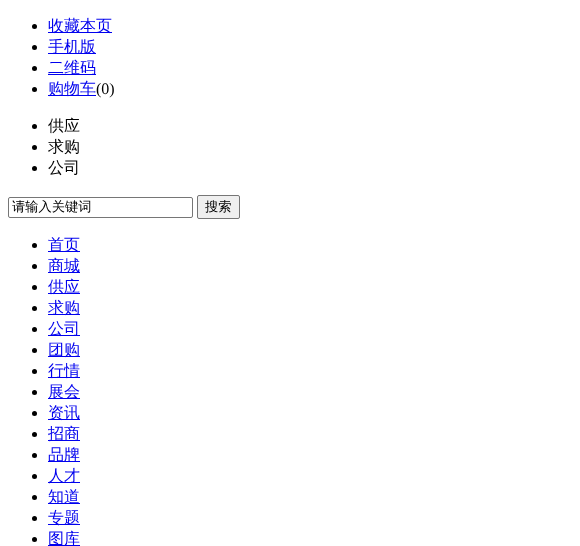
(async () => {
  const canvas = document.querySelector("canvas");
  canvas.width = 580;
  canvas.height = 546;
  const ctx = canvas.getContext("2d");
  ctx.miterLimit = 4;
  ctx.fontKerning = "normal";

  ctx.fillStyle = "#ffffff";
  ctx.fillRect(0, 0, 580, 546);
  ctx.fillStyle = "#000000";
  ctx.beginPath();
  ctx.arc(34.5, 26.5, 2.5, 0, Math.PI * 2);
  ctx.fill();
  ctx.fillStyle = "#0000ee";
  ctx.fillRect(48, 32, 64, 1);
  ctx.fillStyle = "#000000";
  ctx.beginPath();
  ctx.arc(34.5, 47.5, 2.5, 0, Math.PI * 2);
  ctx.fill();
  ctx.fillStyle = "#0000ee";
  ctx.fillRect(48, 53, 48, 1);
  ctx.fillStyle = "#000000";
  ctx.beginPath();
  ctx.arc(34.5, 68.5, 2.5, 0, Math.PI * 2);
  ctx.fill();
  ctx.fillStyle = "#0000ee";
  ctx.fillRect(48, 74, 48, 1);
  ctx.fillStyle = "#000000";
  ctx.beginPath();
  ctx.arc(34.5, 89.5, 2.5, 0, Math.PI * 2);
  ctx.fill();
  ctx.fillStyle = "#0000ee";
  ctx.fillRect(48, 95, 48, 1);
  ctx.fillStyle = "#000000";
  ctx.beginPath();
  ctx.arc(34.5, 126.5, 2.5, 0, Math.PI * 2);
  ctx.fill();
  ctx.beginPath();
  ctx.arc(34.5, 147.5, 2.5, 0, Math.PI * 2);
  ctx.fill();
  ctx.beginPath();
  ctx.arc(34.5, 168.5, 2.5, 0, Math.PI * 2);
  ctx.fill();
  ctx.beginPath();
  ctx.roundRect(8.5, 197.5, 184, 20, 1.5);
  ctx.strokeStyle = "#767676";
  ctx.stroke();
  ctx.fillStyle = "#efefef";
  ctx.beginPath();
  ctx.roundRect(197.5, 195.5, 42, 23, 1.5);
  ctx.fill();
  ctx.stroke();
  ctx.fillStyle = "#000000";
  ctx.beginPath();
  ctx.arc(34.5, 245.5, 2.5, 0, Math.PI * 2);
  ctx.fill();
  ctx.fillStyle = "#0000ee";
  ctx.fillRect(48, 251, 32, 1);
  ctx.fillStyle = "#000000";
  ctx.beginPath();
  ctx.arc(34.5, 266.5, 2.5, 0, Math.PI * 2);
  ctx.fill();
  ctx.fillStyle = "#0000ee";
  ctx.fillRect(48, 272, 32, 1);
  ctx.fillStyle = "#000000";
  ctx.beginPath();
  ctx.arc(34.5, 287.5, 2.5, 0, Math.PI * 2);
  ctx.fill();
  ctx.fillStyle = "#0000ee";
  ctx.fillRect(48, 293, 32, 1);
  ctx.fillStyle = "#000000";
  ctx.beginPath();
  ctx.arc(34.5, 308.5, 2.5, 0, Math.PI * 2);
  ctx.fill();
  ctx.fillStyle = "#0000ee";
  ctx.fillRect(48, 314, 32, 1);
  ctx.fillStyle = "#000000";
  ctx.beginPath();
  ctx.arc(34.5, 329.5, 2.5, 0, Math.PI * 2);
  ctx.fill();
  ctx.fillStyle = "#0000ee";
  ctx.fillRect(48, 335, 32, 1);
  ctx.fillStyle = "#000000";
  ctx.beginPath();
  ctx.arc(34.5, 350.5, 2.5, 0, Math.PI * 2);
  ctx.fill();
  ctx.fillStyle = "#0000ee";
  ctx.fillRect(48, 356, 32, 1);
  ctx.fillStyle = "#000000";
  ctx.beginPath();
  ctx.arc(34.5, 371.5, 2.5, 0, Math.PI * 2);
  ctx.fill();
  ctx.fillStyle = "#0000ee";
  ctx.fillRect(48, 377, 32, 1);
  ctx.fillStyle = "#000000";
  ctx.beginPath();
  ctx.arc(34.5, 392.5, 2.5, 0, Math.PI * 2);
  ctx.fill();
  ctx.fillStyle = "#0000ee";
  ctx.fillRect(48, 398, 32, 1);
  ctx.fillStyle = "#000000";
  ctx.beginPath();
  ctx.arc(34.5, 413.5, 2.5, 0, Math.PI * 2);
  ctx.fill();
  ctx.fillStyle = "#0000ee";
  ctx.fillRect(48, 419, 32, 1);
  ctx.fillStyle = "#000000";
  ctx.beginPath();
  ctx.arc(34.5, 434.5, 2.5, 0, Math.PI * 2);
  ctx.fill();
  ctx.fillStyle = "#0000ee";
  ctx.fillRect(48, 440, 32, 1);
  ctx.fillStyle = "#000000";
  ctx.beginPath();
  ctx.arc(34.5, 455.5, 2.5, 0, Math.PI * 2);
  ctx.fill();
  ctx.fillStyle = "#0000ee";
  ctx.fillRect(48, 461, 32, 1);
  ctx.fillStyle = "#000000";
  ctx.beginPath();
  ctx.arc(34.5, 476.5, 2.5, 0, Math.PI * 2);
  ctx.fill();
  ctx.fillStyle = "#0000ee";
  ctx.fillRect(48, 482, 32, 1);
  ctx.fillStyle = "#000000";
  ctx.beginPath();
  ctx.arc(34.5, 497.5, 2.5, 0, Math.PI * 2);
  ctx.fill();
  ctx.fillStyle = "#0000ee";
  ctx.fillRect(48, 503, 32, 1);
  ctx.fillStyle = "#000000";
  ctx.beginPath();
  ctx.arc(34.5, 518.5, 2.5, 0, Math.PI * 2);
  ctx.fill();
  ctx.fillStyle = "#0000ee";
  ctx.fillRect(48, 524, 32, 1);
  ctx.fillStyle = "#000000";
  ctx.beginPath();
  ctx.arc(34.5, 539.5, 2.5, 0, Math.PI * 2);
  ctx.fill();
  ctx.fillStyle = "#0000ee";
  ctx.fillRect(48, 545, 32, 1);
  ctx.font = "500 16px WenQuanYi Zen Hei";
  for (const [text, x, y] of [
    ["收藏本页", 48, 31],
    ["手机版", 48, 52],
    ["二维码", 48, 73],
    ["购物车", 48, 94],
  ]) {
    ctx.fillText(text, x, y);
  }
  ctx.font = "16px Liberation Serif";
  ctx.fillStyle = "#000000";
  ctx.fillText("(0)", 96, 94);
  ctx.font = "500 16px WenQuanYi Zen Hei";
  for (const [text, x, y] of [
    ["供应", 48, 131],
    ["求购", 48, 152],
    ["公司", 48, 173],
  ]) {
    ctx.fillText(text, x, y);
  }
  ctx.font = "500 13.25px WenQuanYi Zen Hei";
  ctx.fillText("请输入关键词", 12, 211);
  ctx.fillText("搜索", 205, 211);
  ctx.font = "500 16px WenQuanYi Zen Hei";
  ctx.fillStyle = "#0000ee";
  for (const [text, x, y] of [
    ["首页", 48, 250],
    ["商城", 48, 271],
    ["供应", 48, 292],
    ["求购", 48, 313],
    ["公司", 48, 334],
    ["团购", 48, 355],
    ["行情", 48, 376],
    ["展会", 48, 397],
    ["资讯", 48, 418],
    ["招商", 48, 439],
    ["品牌", 48, 460],
    ["人才", 48, 481],
    ["知道", 48, 502],
    ["专题", 48, 523],
    ["图库", 48, 544],
  ]) {
    ctx.fillText(text, x, y);
  }
})();
